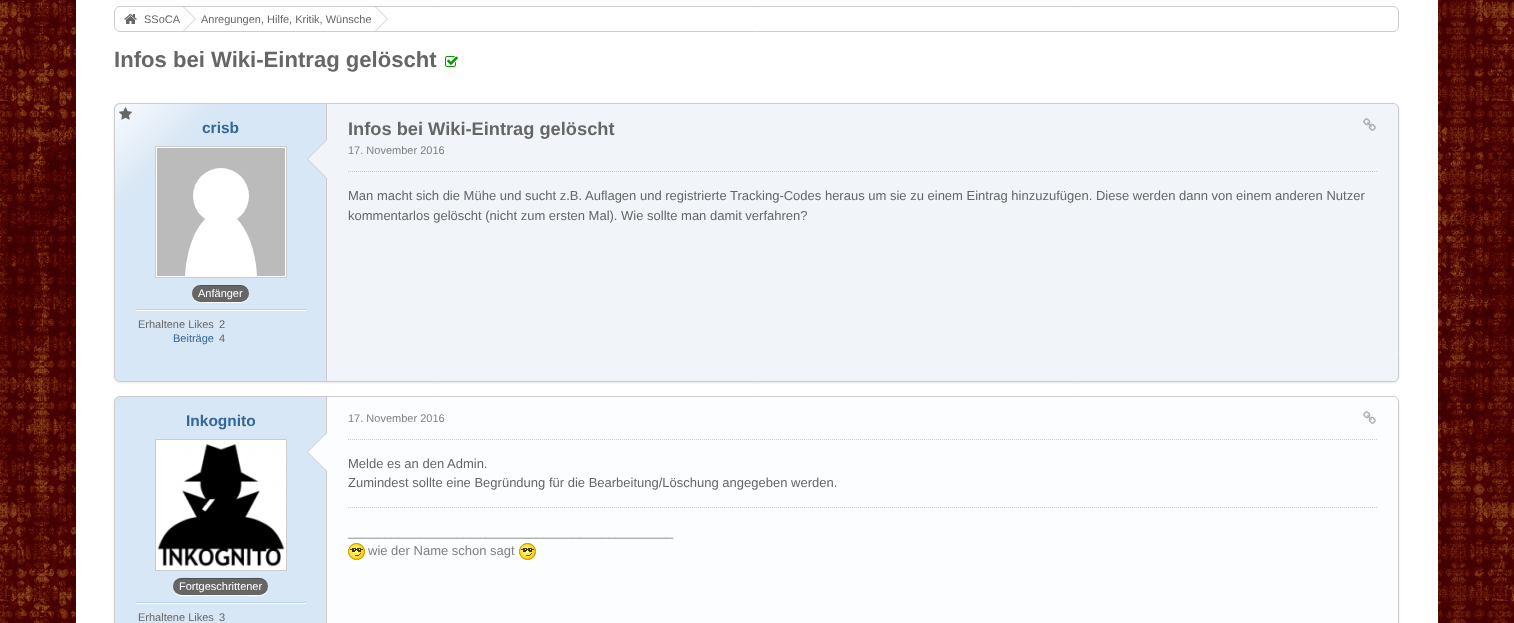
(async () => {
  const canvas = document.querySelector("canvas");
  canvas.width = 1514;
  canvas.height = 623;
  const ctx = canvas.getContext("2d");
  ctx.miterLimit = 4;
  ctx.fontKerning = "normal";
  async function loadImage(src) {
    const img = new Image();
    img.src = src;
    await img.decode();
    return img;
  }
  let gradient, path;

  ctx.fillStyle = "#ffffff";
  ctx.fillRect(0, 0, 1514, 623);
  ctx.drawImage(await loadImage("img/1.png"), 0, 0, 1514, 623);
  ctx.fillRect(76, 0, 1362, 623);
  ctx.beginPath();
  ctx.roundRect(114.5, 6.5, 1284, 25, 5.5);
  ctx.strokeStyle = "#cccccc";
  ctx.stroke();
  ctx.drawImage(await loadImage("img/2.png"), 124, 14, 13, 10);
  ctx.fillStyle = "#cccccc";
  path = new Path2D("M184 7L196 19L184 31H181V7Z");
  ctx.fill(path);
  ctx.fillStyle = "#ffffff";
  path = new Path2D("M183 7L195 19L183 31H180V7Z");
  ctx.fill(path);
  ctx.fillStyle = "#cccccc";
  path = new Path2D("M376 7L388 19L376 31H373V7Z");
  ctx.fill(path);
  ctx.fillStyle = "#ffffff";
  path = new Path2D("M375 7L387 19L375 31H372V7Z");
  ctx.fill(path);
  ctx.drawImage(await loadImage("img/3.png"), 445, 56, 13, 11);
  ctx.fillStyle = "rgba(0, 0, 0, 0.1)";
  ctx.filter = "blur(1px)";
  ctx.beginPath();
  ctx.roundRect(114, 104, 1285, 279, 6);
  ctx.fill();
  ctx.filter = "none";
  ctx.fillStyle = "#d8e7f5";
  ctx.beginPath();
  ctx.roundRect(114.5, 103.5, 1284, 278, 5.5);
  ctx.fill();
  ctx.stroke();
  gradient = ctx.createLinearGradient(115, 104, 243, 232);
  gradient.addColorStop(0, "#f9fbfd");
  gradient.addColorStop(0.4, "#d8e7f5");
  ctx.fillStyle = gradient;
  ctx.beginPath();
  ctx.roundRect(115, 104, 128, 128, [6, 0, 0, 0]);
  ctx.fill();
  ctx.drawImage(await loadImage("img/4.png"), 119, 107, 13, 13);
  ctx.fillStyle = "#ffffff";
  ctx.beginPath();
  ctx.rect(155.5, 146.5, 131, 131);
  ctx.fill();
  ctx.stroke();
  ctx.fillStyle = "#bbbbbb";
  ctx.fillRect(157, 148, 128, 128);
  ctx.fillStyle = "#ffffff";
  path = new Path2D("M185 276C187 240 202 212 221 212C240 212 255 240 257 276");
  ctx.fill(path);
  ctx.beginPath();
  ctx.arc(221, 196, 28, 0, Math.PI * 2);
  ctx.fill();
  path = new Path2D("M192 294C191 303 201 303 207 303H234C240 303 250 303 249 294C249 298 245 302 240 302H200C196 302 192 298 192 294Z");
  ctx.fill(path);
  ctx.fillStyle = "#666666";
  ctx.beginPath();
  ctx.roundRect(192, 285, 57, 17, 8.5);
  ctx.fill();
  ctx.fillStyle = "rgba(0, 0, 0, 0.2)";
  path = new Path2D("M200 286H240C245 286 249 290 249 294C249 285 240 285 234 285H207C201 285 192 285 192 294C192 290 196 286 200 286Z");
  ctx.fill(path);
  ctx.fillStyle = "#ffffff";
  ctx.fillRect(136, 310, 170, 1);
  ctx.fillStyle = "#b8d3ed";
  ctx.fillRect(136, 309, 170, 1);
  ctx.fillStyle = "#f1f5fa";
  ctx.beginPath();
  ctx.roundRect(326, 104, 1072, 277, [0, 5, 5, 0]);
  ctx.fill();
  ctx.fillStyle = "#cccccc";
  ctx.fillRect(326, 104, 1, 277);
  path = new Path2D("M327 139V179L307 159Z");
  ctx.fill(path);
  ctx.drawImage(await loadImage("img/5.png"), 1363, 118, 13, 13);
  ctx.fillStyle = "#f1f5fa";
  path = new Path2D("M328 139V179L308 159Z");
  ctx.fill(path);
  path = new Path2D("M348 171.5H1377");
  ctx.setLineDash([1, 1]);
  ctx.stroke(path);
  path = new Path2D("M1365 353L1366 354H1398L1399 353Z");
  ctx.fill(path);
  ctx.fillStyle = "rgba(0, 0, 0, 0.1)";
  ctx.filter = "blur(1px)";
  ctx.beginPath();
  ctx.roundRect(114, 397, 1285, 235, 6);
  ctx.fill();
  ctx.filter = "none";
  ctx.fillStyle = "#d8e7f5";
  ctx.beginPath();
  ctx.roundRect(114.5, 396.5, 1284, 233, 5.5);
  ctx.fill();
  ctx.setLineDash([]);
  ctx.stroke();
  ctx.fillStyle = "#ffffff";
  ctx.beginPath();
  ctx.rect(155.5, 439.5, 131, 131);
  ctx.fill();
  ctx.stroke();
  ctx.drawImage(await loadImage("img/6.png"), 157, 444, 128, 123);
  path = new Path2D("M173 587C172 599 188 596 194 596H246C253 596 269 599 268 587C268 591 264 595 260 595H182C177 595 173 591 173 587Z");
  ctx.fill(path);
  ctx.fillStyle = "#666666";
  ctx.beginPath();
  ctx.roundRect(173, 578, 95, 17, 8.5);
  ctx.fill();
  ctx.fillStyle = "rgba(0, 0, 0, 0.2)";
  path = new Path2D("M182 579H260C264 579 268 583 268 587C269 575 253 578 246 578H194C188 578 172 575 173 587C173 583 177 579 182 579Z");
  ctx.fill(path);
  ctx.fillStyle = "#ffffff";
  ctx.fillRect(136, 603, 170, 1);
  ctx.fillStyle = "#b8d3ed";
  ctx.fillRect(136, 602, 170, 1);
  ctx.fillStyle = "#fcfdfe";
  path = new Path2D("M326 397H1393C1396 397 1398 399 1398 402V623C1398 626 1396 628 1393 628H326Z");
  ctx.fill(path);
  ctx.fillStyle = "#cccccc";
  ctx.fillRect(326, 397, 1, 226);
  ctx.drawImage(await loadImage("img/7.png"), 1363, 411, 13, 13);
  path = new Path2D("M327 432V472L307 452Z");
  ctx.fill(path);
  ctx.fillStyle = "#fcfdfe";
  path = new Path2D("M328 432V472L308 452Z");
  ctx.fill(path);
  path = new Path2D("M348 439.5H1377");
  ctx.setLineDash([1, 1]);
  ctx.stroke(path);
  path = new Path2D("M348 507.5H1377");
  ctx.stroke(path);
  ctx.drawImage(await loadImage("img/8.png"), 348, 543, 17, 17);
  ctx.drawImage(await loadImage("img/8.png"), 519, 543, 17, 17);
  ctx.font = "11px Liberation Sans";
  ctx.fillStyle = "#666666";
  ctx.fillText("SSoCA", 144, 23);
  ctx.fillText("Anregungen, Hilfe, Kritik, Wünsche", 201, 23);
  ctx.font = "bold 22.1px Liberation Sans";
  ctx.fillText("Infos bei Wiki-Eintrag gelöscht", 114, 67);
  ctx.font = "bold 15.5px Liberation Sans";
  ctx.fillStyle = "#336699";
  ctx.fillText("crisb", 202, 133);
  ctx.font = "11px Liberation Sans";
  ctx.fillStyle = "#ffffff";
  ctx.fillText("Anfänger", 198, 297);
  ctx.fillStyle = "#666666";
  ctx.fillText("Erhaltene Likes", 138, 328);
  ctx.fillText("2", 219, 328);
  ctx.fillStyle = "#336699";
  ctx.fillText("Beiträge", 173, 342);
  ctx.fillStyle = "#666666";
  ctx.fillText("4", 219, 342);
  ctx.font = "bold 18.25px Liberation Sans";
  ctx.fillText("Infos bei Wiki-Eintrag gelöscht", 348, 135);
  ctx.font = "11px Liberation Sans";
  ctx.fillStyle = "#808080";
  ctx.fillText("17. November 2016", 348, 154);
  ctx.font = "13px Liberation Sans";
  ctx.fillStyle = "#666666";
  ctx.fillText("Man macht sich die Mühe und sucht z.B. Auflagen und registrierte Tracking-Codes heraus um sie zu einem Eintrag hinzuzufügen. Diese werden dann von einem anderen Nutzer", 348, 200);
  ctx.fillText("kommentarlos gelöscht (nicht zum ersten Mal). Wie sollte man damit verfahren?", 348, 220);
  ctx.font = "bold 15.5px Liberation Sans";
  ctx.fillStyle = "#336699";
  ctx.fillText("Inkognito", 186, 426);
  ctx.font = "11px Liberation Sans";
  ctx.fillStyle = "#ffffff";
  ctx.fillText("Fortgeschrittener", 179, 590);
  ctx.fillStyle = "#666666";
  ctx.fillText("Erhaltene Likes", 138, 621);
  ctx.fillText("3", 219, 621);
  ctx.fillStyle = "#808080";
  ctx.fillText("17. November 2016", 348, 422);
  ctx.font = "13px Liberation Sans";
  ctx.fillStyle = "#666666";
  ctx.fillText("Melde es an den Admin.", 348, 468);
  ctx.fillText("Zumindest sollte eine Begründung für die Bearbeitung/Löschung angegeben werden.", 348, 487);
  ctx.fillStyle = "#808080";
  ctx.fillText("_____________________________________________", 348, 536);
  ctx.fillText("wie der Name schon sagt", 368, 555);
})();
